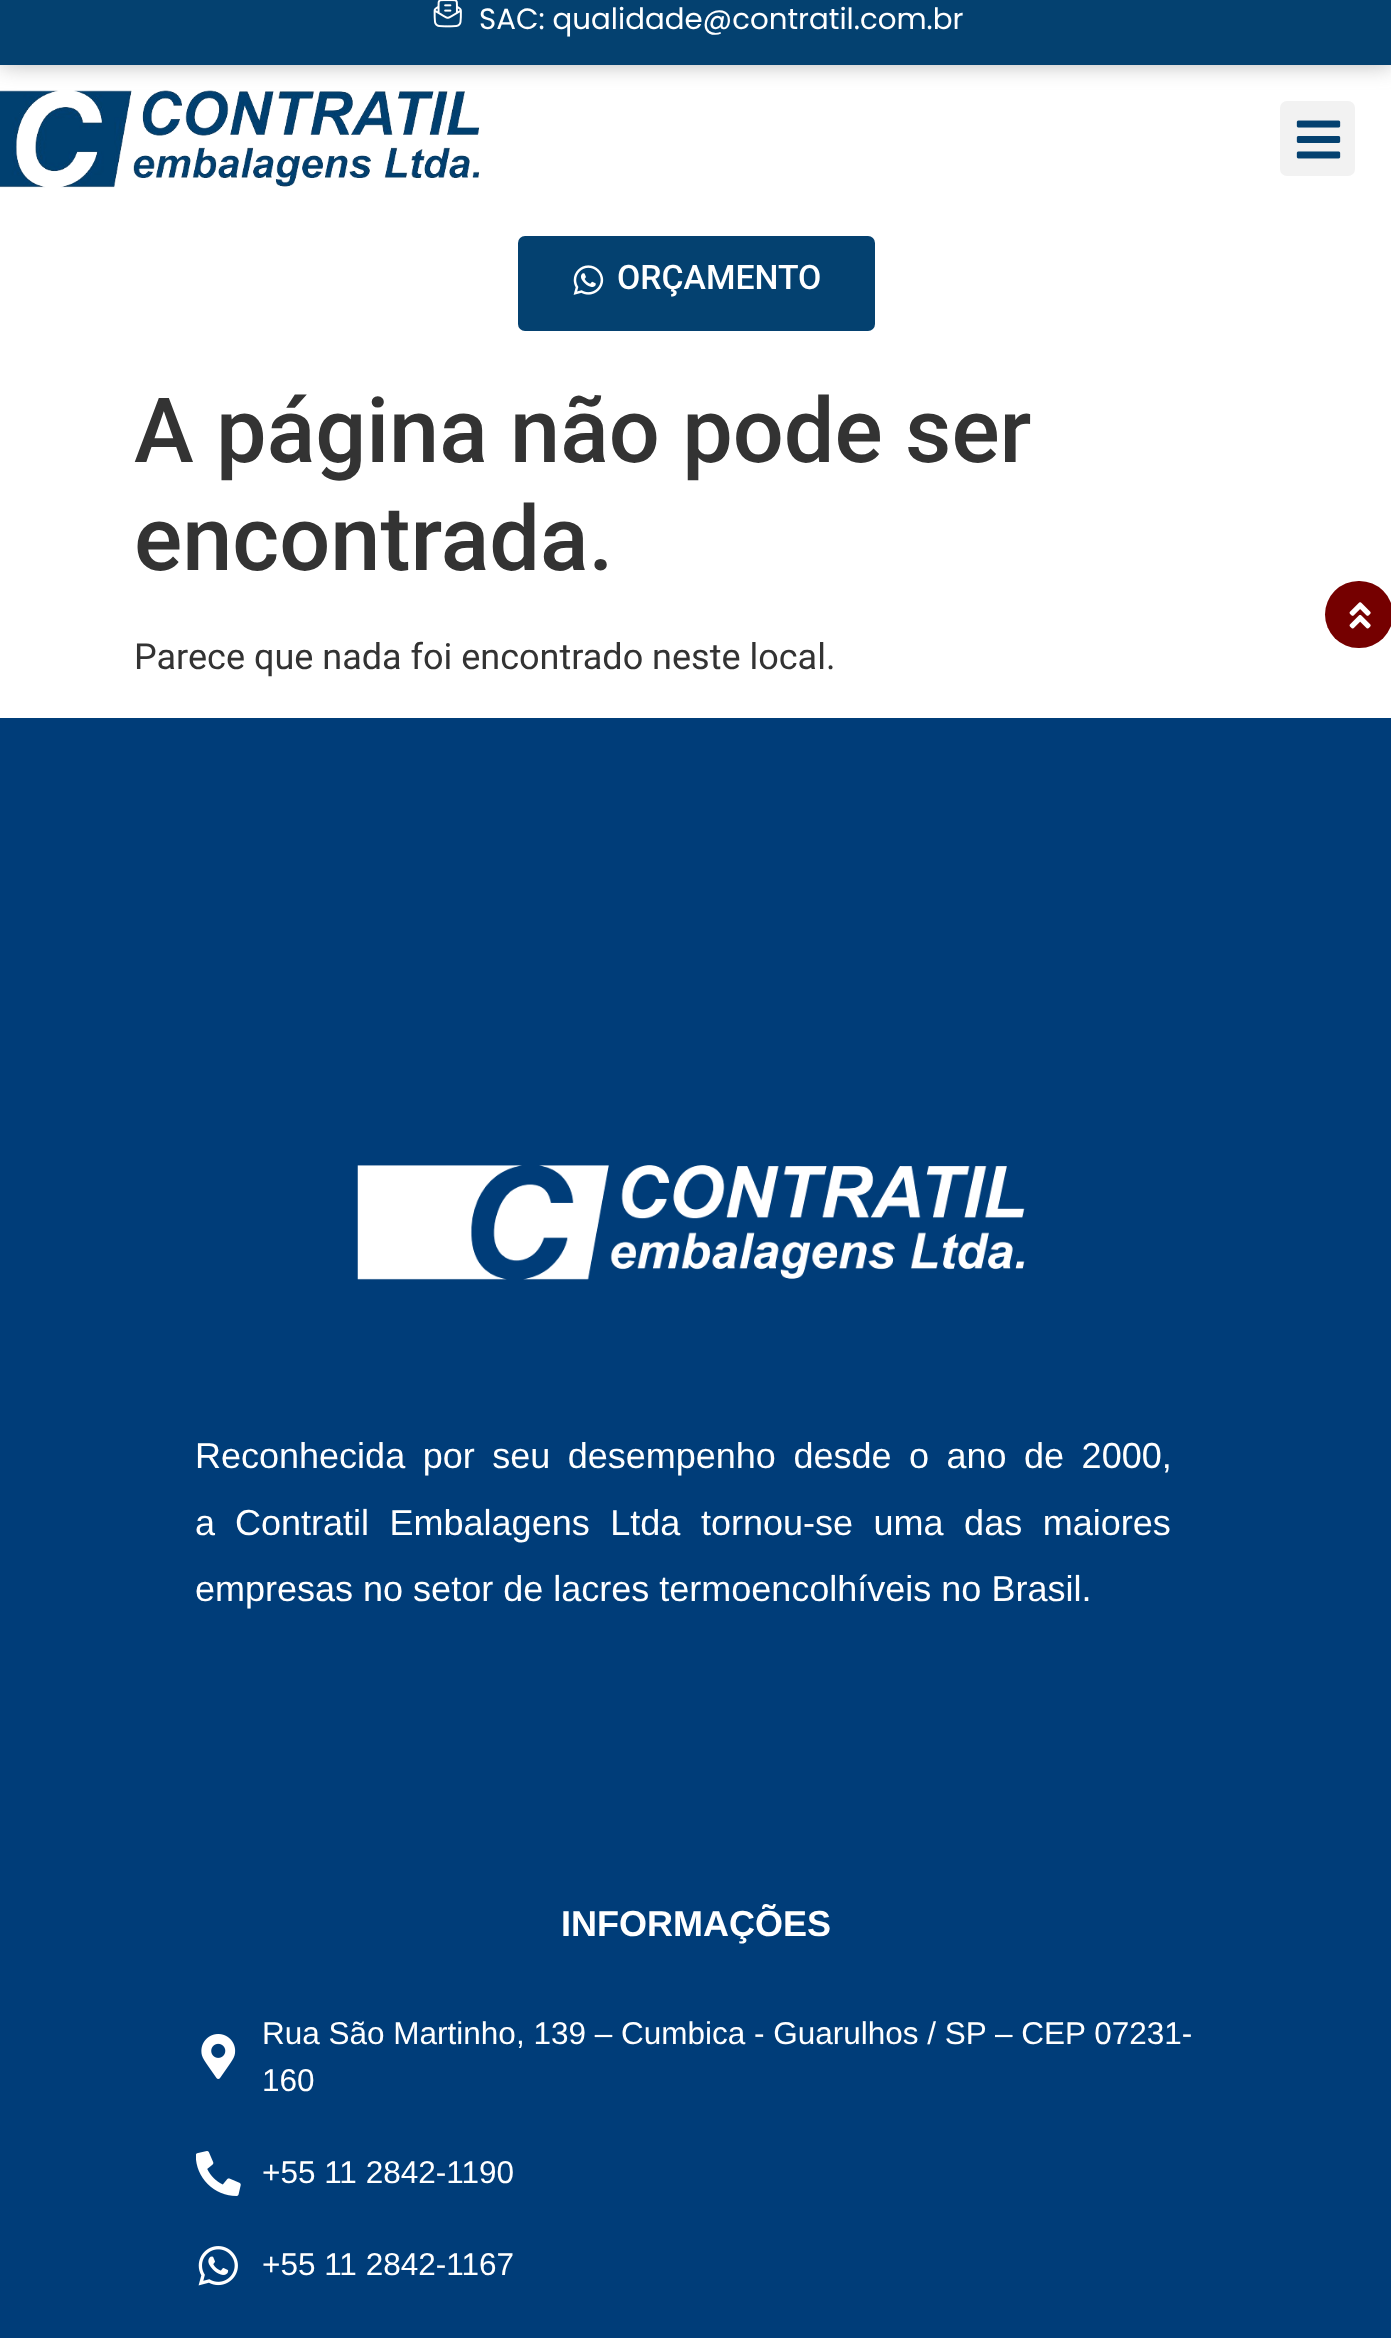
(async () => {
  const canvas = document.querySelector("canvas");
  canvas.width = 1391;
  canvas.height = 2338;
  const ctx = canvas.getContext("2d");
  ctx.miterLimit = 4;
  ctx.fontKerning = "normal";
  async function loadImage(src) {
    const img = new Image();
    img.src = src;
    await img.decode();
    return img;
  }

  ctx.fillStyle = "#ffffff";
  ctx.fillRect(0, 0, 1391, 2338);
  ctx.fillStyle = "rgba(117, 117, 117, 0.5)";
  ctx.filter = "blur(11px)";
  ctx.beginPath();
  ctx.rect(0, -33, 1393, 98);
  ctx.fill();
  ctx.filter = "none";
  ctx.fillStyle = "#044170";
  ctx.fillRect(0, 0, 1391, 65);
  ctx.drawImage(await loadImage("img/1.png"), 433, 0, 29, 28);
  ctx.drawImage(await loadImage("img/2.png"), 0, 90, 480, 98);
  ctx.fillStyle = "#f2f2f2";
  ctx.beginPath();
  ctx.roundRect(1280, 101, 75, 75, 7);
  ctx.fill();
  ctx.drawImage(await loadImage("img/3.png"), 1296, 120, 45, 39);
  ctx.fillStyle = "#044170";
  ctx.beginPath();
  ctx.roundRect(518, 236, 357, 95, 7);
  ctx.fill();
  ctx.drawImage(await loadImage("img/4.png"), 573, 265, 31, 30);
  ctx.fillStyle = "#750000";
  ctx.beginPath();
  ctx.roundRect(1325, 581, 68, 67, 33.5);
  ctx.fill();
  ctx.drawImage(await loadImage("img/5.png"), 1349, 602, 22, 27);
  ctx.fillStyle = "#003d79";
  ctx.fillRect(0, 718, 1391, 1620);
  ctx.drawImage(await loadImage("img/6.png"), 357, 1165, 668, 115);
  ctx.drawImage(await loadImage("img/7.png"), 201, 2034, 35, 45);
  ctx.drawImage(await loadImage("img/8.png"), 196, 2151, 45, 45);
  ctx.drawImage(await loadImage("img/9.png"), 198, 2246, 40, 40);
  ctx.font = "29.25px Poppins";
  ctx.fillStyle = "#ffffff";
  ctx.fillText("SAC: qualidade@contratil.com.br", 479, 29);
  ctx.font = "500 33.75px Roboto";
  ctx.fillText("ORÇAMENTO", 617, 289);
  ctx.font = "500 90px Roboto";
  ctx.fillStyle = "#333333";
  ctx.fillText("A página não pode ser", 134, 462);
  ctx.fillText("encontrada.", 134, 570);
  ctx.font = "36px Roboto";
  ctx.fillText("Parece que nada foi encontrado neste local.", 134, 669);
  ctx.wordSpacing = "7.5px";
  ctx.font = "36px Liberation Sans";
  ctx.fillStyle = "#ffffff";
  ctx.fillText("Reconhecida por seu desempenho desde o ano de 2000,", 195, 1468);
  ctx.wordSpacing = "0px";
  ctx.fillText("a", 195, 1535);
  ctx.wordSpacing = "10.5px";
  ctx.fillText("Contratil Embalagens Ltda", 235, 1535);
  ctx.fillText("tornou-se uma das maiores", 701, 1535);
  ctx.wordSpacing = "0px";
  ctx.fillText("empresas no setor de lacres termoencolhíveis no Brasil.", 195, 1601);
  ctx.font = "bold 36px Liberation Sans";
  ctx.fillText("INFORMAÇÕES", 561, 1936);
  ctx.font = "31.5px Liberation Sans";
  for (const [text, x, y] of [
    ["Rua São Martinho, 139 – Cumbica - Guarulhos / SP – CEP 07231-", 262, 2044],
    ["160", 262, 2091],
    ["+55 11 2842-1190", 262, 2183],
    ["+55 11 2842-1167", 262, 2275],
  ]) {
    ctx.fillText(text, x, y);
  }
})();
